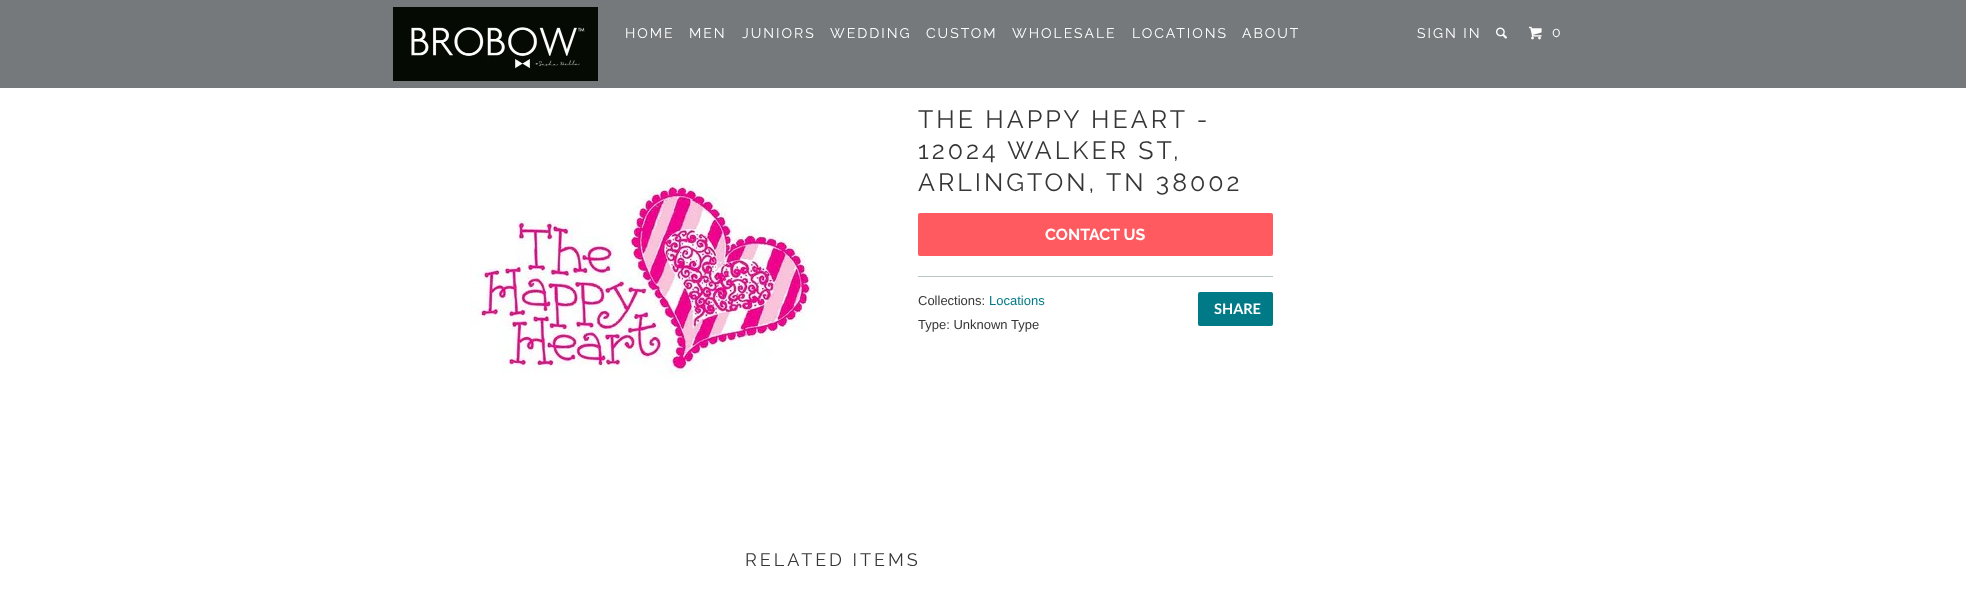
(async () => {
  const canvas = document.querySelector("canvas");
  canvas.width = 1966;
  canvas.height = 599;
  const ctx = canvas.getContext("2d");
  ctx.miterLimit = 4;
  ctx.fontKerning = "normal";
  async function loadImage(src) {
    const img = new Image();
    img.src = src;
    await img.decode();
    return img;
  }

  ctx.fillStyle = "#ffffff";
  ctx.fillRect(0, 0, 1966, 599);
  ctx.fillStyle = "#76797b";
  ctx.fillRect(0, 0, 1966, 88);
  ctx.drawImage(await loadImage("img/1.png"), 393, 7, 205, 74);
  ctx.drawImage(await loadImage("img/2.png"), 1496, 27, 11, 12);
  ctx.drawImage(await loadImage("img/3.png"), 1529, 26, 13, 14);
  ctx.drawImage(await loadImage("img/4.png"), 469, 178, 352, 200);
  ctx.fillStyle = "#ff5a5f";
  ctx.beginPath();
  ctx.roundRect(918, 213, 355, 43, 2);
  ctx.fill();
  ctx.fillStyle = "#b8c6c6";
  ctx.fillRect(918, 276, 355, 1);
  ctx.fillStyle = "#007a87";
  ctx.beginPath();
  ctx.roundRect(1198, 292, 75, 34, 2);
  ctx.fill();
  ctx.letterSpacing = "2px";
  ctx.font = "14px Raleway";
  ctx.fillStyle = "#ffffff";
  for (const [text, x, y] of [
    ["HOME", 625, 38],
    ["MEN", 689, 38],
    ["JUNIORS", 742, 38],
    ["WEDDING", 830, 38],
    ["CUSTOM", 926, 38],
    ["WHOLESALE", 1012, 38],
    ["LOCATIONS", 1132, 38],
    ["ABOUT", 1242, 38],
    ["SIGN IN", 1417, 38],
    ["0", 1552, 37],
  ]) {
    ctx.fillText(text, x, y);
  }
  ctx.letterSpacing = "3px";
  ctx.font = "25px Raleway";
  ctx.fillStyle = "#363636";
  for (const [text, x, y] of [
    ["THE HAPPY HEART -", 918, 128],
    ["12024 WALKER ST,", 918, 159],
    ["ARLINGTON, TN 38002", 918, 191],
  ]) {
    ctx.fillText(text, x, y);
  }
  ctx.letterSpacing = "0px";
  ctx.font = "bold 16px Raleway";
  ctx.fillStyle = "#ffffff";
  ctx.fillText("CONTACT US", 1045, 240);
  ctx.font = "13px Liberation Sans";
  ctx.fillStyle = "#363636";
  ctx.fillText("Collections:", 918, 305);
  ctx.fillStyle = "#007a87";
  ctx.fillText("Locations", 989, 305);
  ctx.font = "bold 14.5px Lato";
  ctx.fillStyle = "#ffffff";
  ctx.fillText("SHARE", 1214, 314);
  ctx.font = "13px Liberation Sans";
  ctx.fillStyle = "#363636";
  ctx.fillText("Type: Unknown Type", 918, 329);
  ctx.letterSpacing = "3px";
  ctx.font = "18px Raleway";
  ctx.fillText("RELATED ITEMS", 745, 566);
})();
